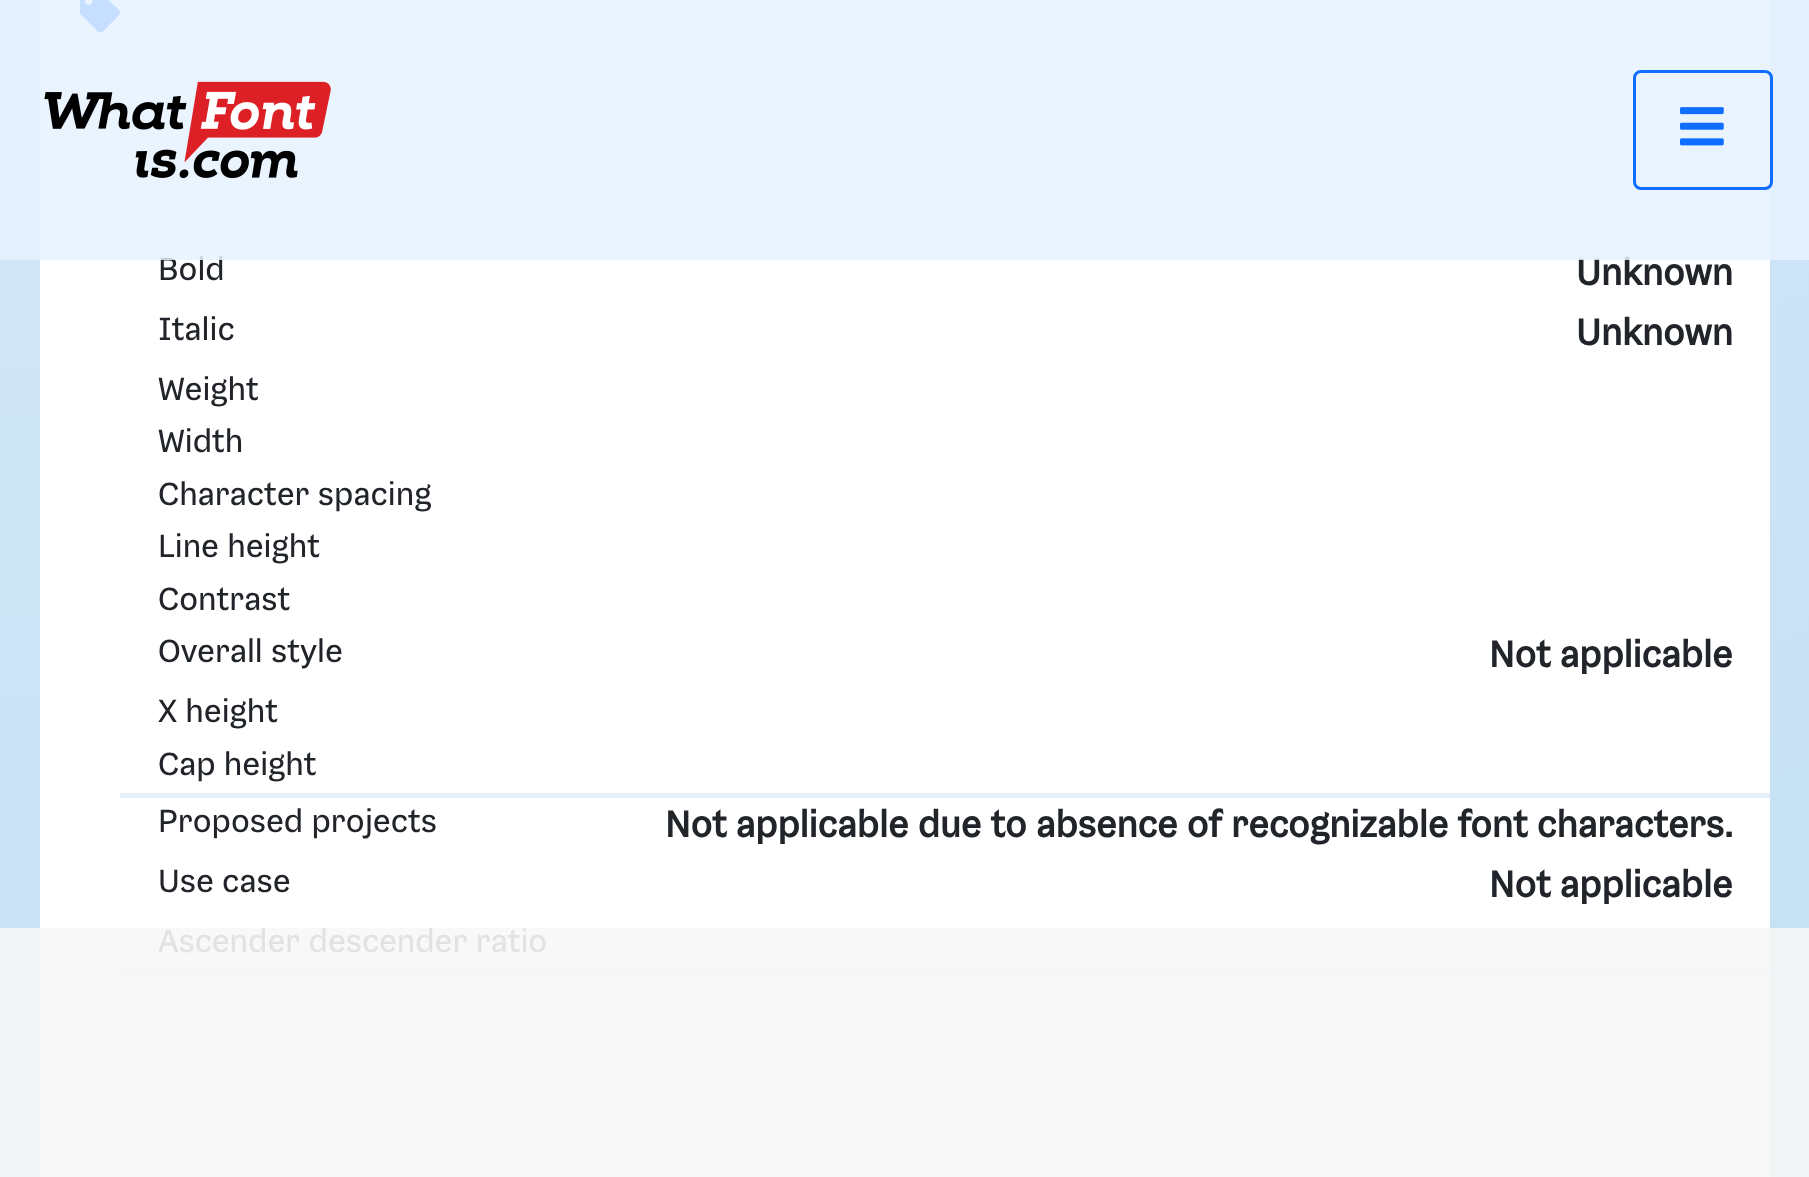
(async () => {
  const canvas = document.querySelector("canvas");
  canvas.width = 1809;
  canvas.height = 1177;
  const ctx = canvas.getContext("2d");
  ctx.miterLimit = 4;
  ctx.fontKerning = "normal";
  async function loadImage(src) {
    const img = new Image();
    img.src = src;
    await img.decode();
    return img;
  }
  let gradient;

  ctx.fillStyle = "#ffffff";
  ctx.fillRect(0, 0, 1809, 1177);
  gradient = ctx.createRadialGradient(0, -3537, 0, 0, -3537, 13175);
  gradient.addColorStop(0.1, "#e7f2fa");
  gradient.addColorStop(1, "#78b9e7");
  ctx.fillStyle = gradient;
  ctx.fillRect(0, 0, 1809, 928);
  gradient = ctx.createRadialGradient(0, -3537, 0, 0, -3537, 13175);
  gradient.addColorStop(0.1, "#f5f7f7");
  gradient.addColorStop(1, "#eaf1f5");
  ctx.fillStyle = gradient;
  ctx.fillRect(0, 928, 1809, 249);
  ctx.fillStyle = "#ffffff";
  ctx.fillRect(40, 0, 1730, 928);
  ctx.fillStyle = "#f8f8f8";
  ctx.fillRect(40, 928, 1730, 249);
  ctx.drawImage(await loadImage("img/3.png"), 80, 0, 40, 33);
  ctx.fillStyle = "#e3f0f9";
  ctx.fillRect(120, 793, 1650, 5);
  ctx.fillStyle = "#f5f6f7";
  ctx.fillRect(120, 970, 1650, 5);
  ctx.font = "35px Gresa";
  ctx.fillStyle = "#212529";
  ctx.fillText("Bold", 158, 280);
  ctx.font = "bold 40px Gresa";
  ctx.fillText("Unknown", 1576, 285);
  ctx.fillStyle = "rgba(230, 242, 255, 0.85)";
  ctx.fillRect(0, 0, 1809, 260);
  ctx.drawImage(await loadImage("img/1.png"), 44, 81, 287, 98);
  ctx.beginPath();
  ctx.roundRect(1634.5, 71.5, 137, 117, 6.5);
  ctx.strokeStyle = "#0f6dff";
  ctx.lineWidth = 3;
  ctx.stroke();
  ctx.drawImage(await loadImage("img/2.png"), 1680, 107, 44, 39);
  ctx.font = "35px Gresa";
  ctx.fillStyle = "#212529";
  ctx.fillText("Italic", 158, 340);
  ctx.font = "bold 40px Gresa";
  ctx.fillText("Unknown", 1576, 345);
  ctx.font = "35px Gresa";
  for (const [text, x, y] of [
    ["Weight", 158, 400],
    ["Width", 158, 452],
    ["Character spacing", 158, 505],
    ["Line height", 158, 557],
    ["Contrast", 158, 610],
    ["Overall style", 158, 662],
  ]) {
    ctx.fillText(text, x, y);
  }
  ctx.font = "bold 40px Gresa";
  ctx.fillText("Not applicable", 1489, 667);
  ctx.font = "35px Gresa";
  for (const [text, x, y] of [
    ["X height", 158, 722],
    ["Cap height", 158, 775],
    ["Proposed projects", 158, 832],
  ]) {
    ctx.fillText(text, x, y);
  }
  ctx.font = "bold 40px Gresa";
  ctx.fillText("Not applicable due to absence of recognizable font characters.", 665, 837);
  ctx.font = "35px Gresa";
  ctx.fillText("Use case", 158, 892);
  ctx.font = "bold 40px Gresa";
  ctx.fillText("Not applicable", 1489, 897);
  ctx.font = "35px Gresa";
  ctx.fillStyle = "#e2e2e2";
  ctx.fillText("Ascender descender ratio", 158, 952);
})();
